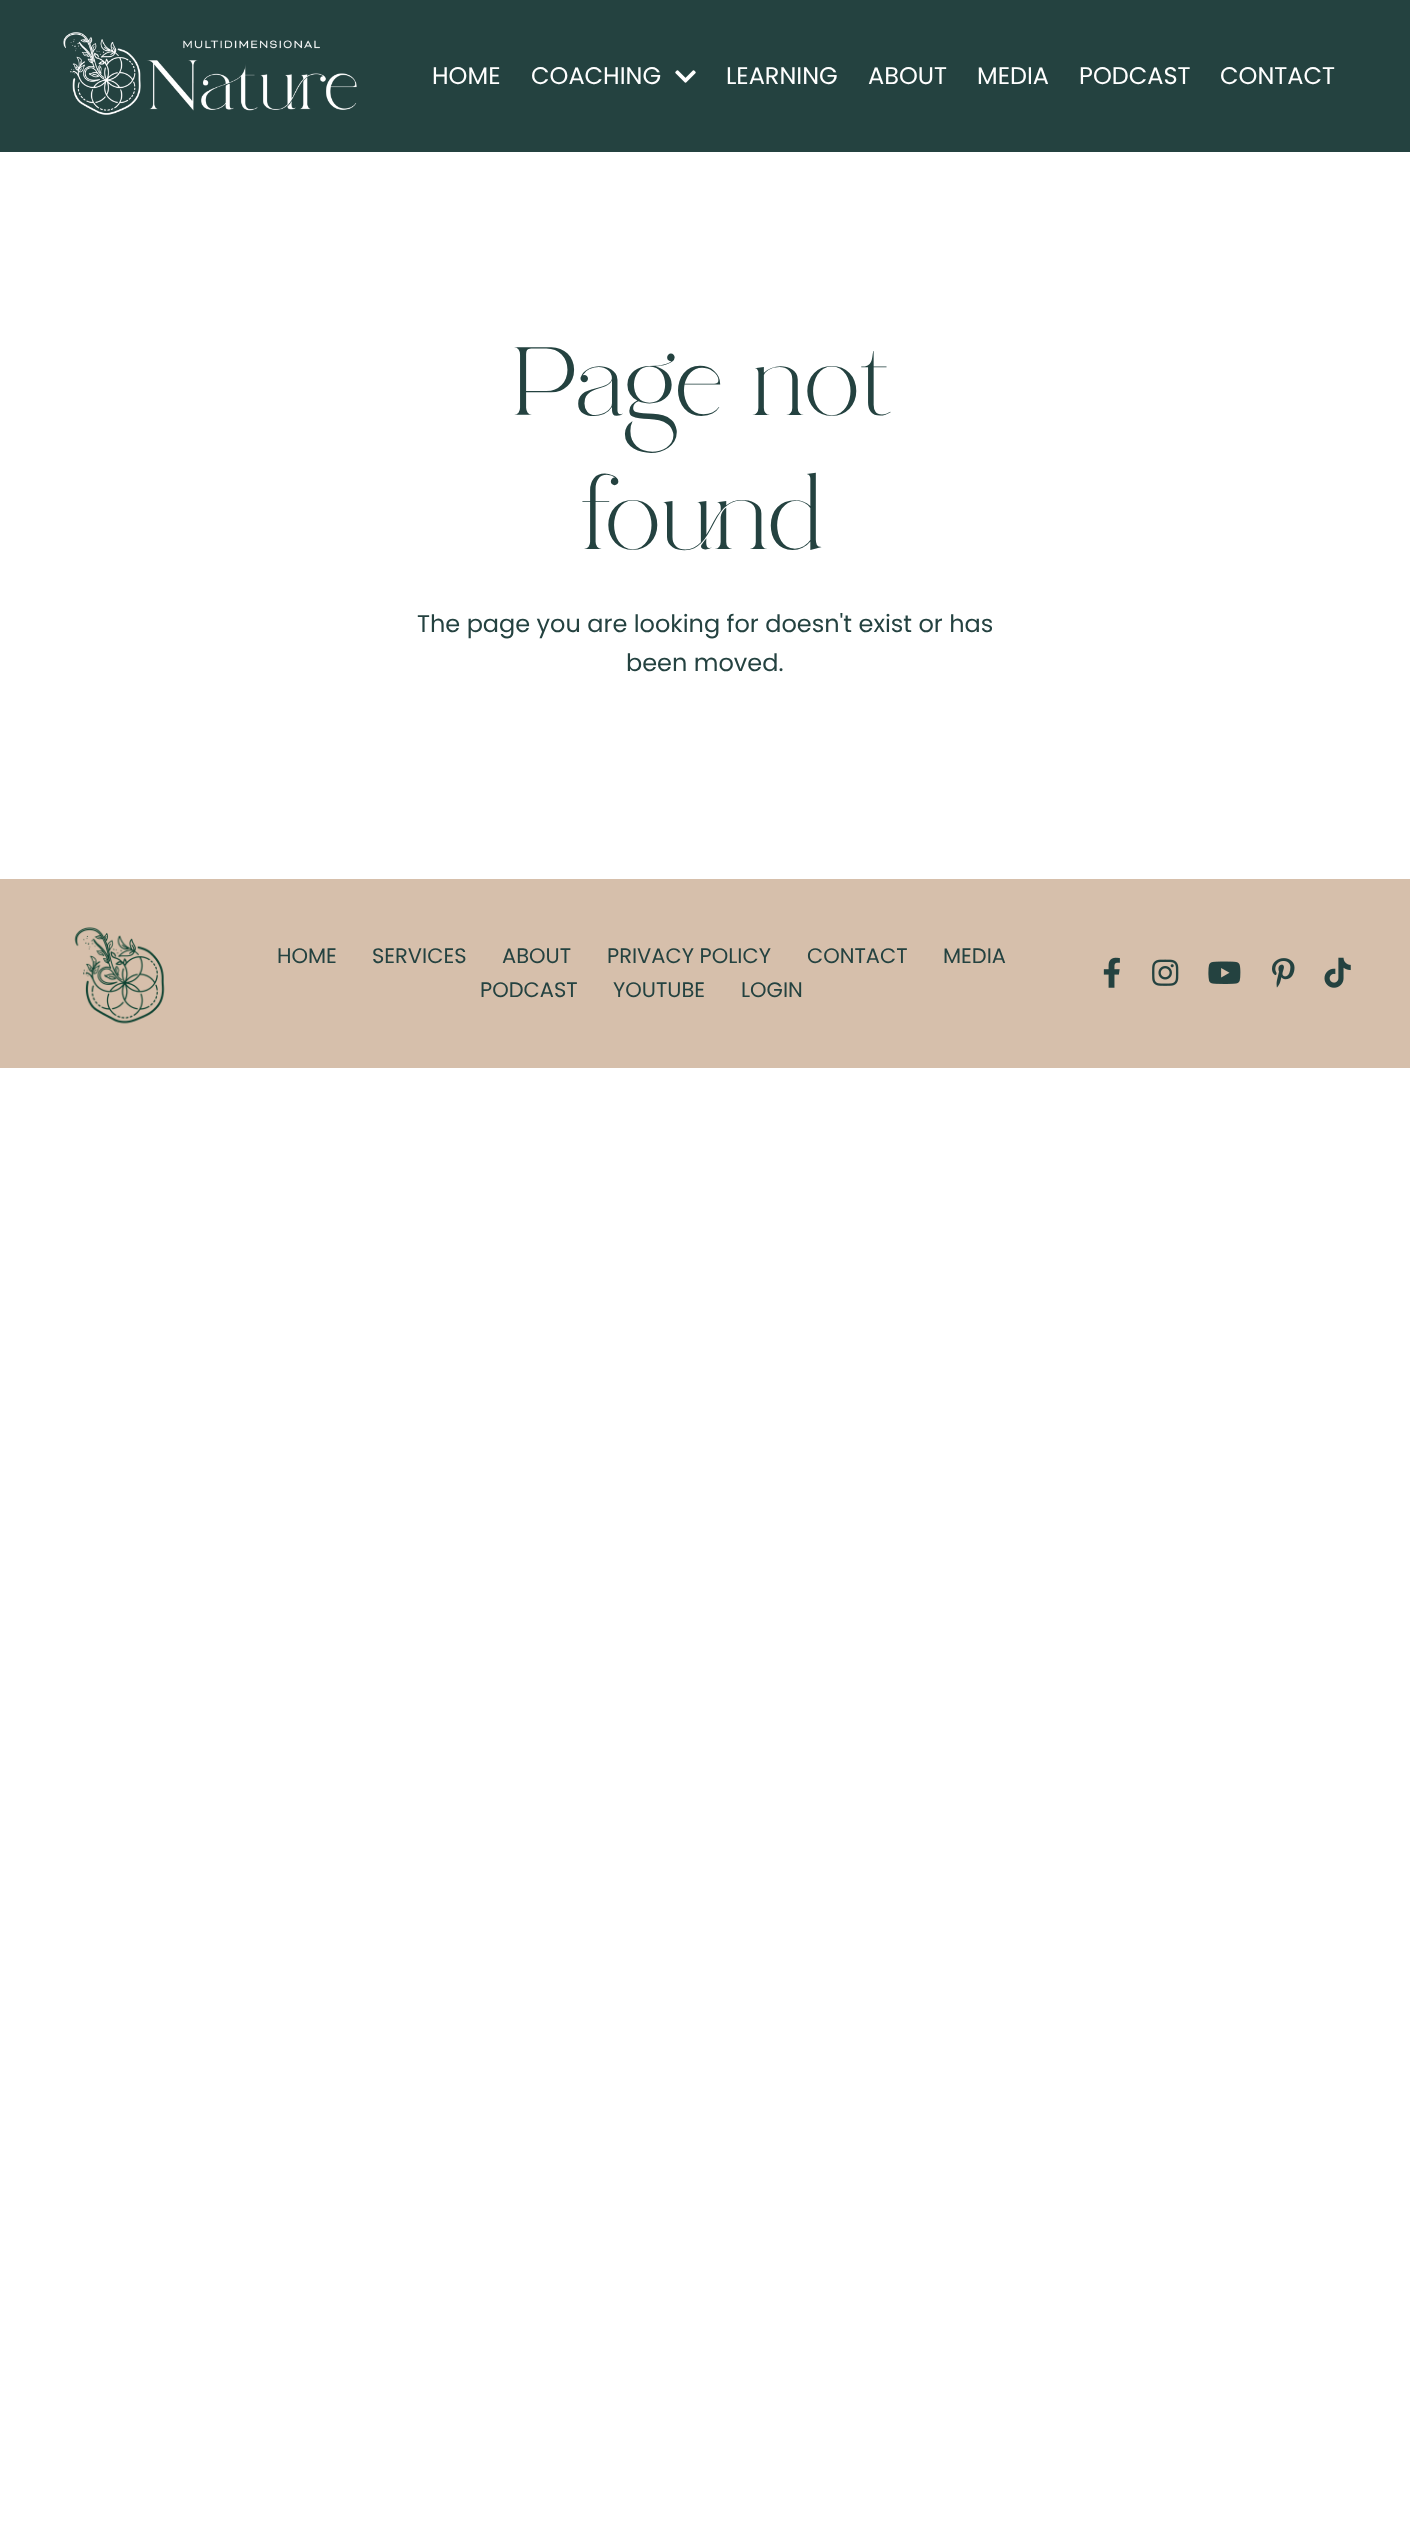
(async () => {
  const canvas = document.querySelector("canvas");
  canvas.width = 1410;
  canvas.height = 2527;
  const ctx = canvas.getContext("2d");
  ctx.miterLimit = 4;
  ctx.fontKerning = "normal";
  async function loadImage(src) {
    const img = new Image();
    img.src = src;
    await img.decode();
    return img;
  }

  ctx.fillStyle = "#ffffff";
  ctx.fillRect(0, 0, 1410, 2527);
  ctx.fillStyle = "#244240";
  ctx.fillRect(0, 0, 1410, 152);
  ctx.drawImage(await loadImage("img/1.png"), 63, 32, 294, 83);
  ctx.drawImage(await loadImage("img/2.png"), 675, 70, 21, 13);
  ctx.fillStyle = "#d6bfab";
  ctx.fillRect(0, 879, 1410, 189);
  ctx.drawImage(await loadImage("img/3.png"), 74, 927, 91, 97);
  ctx.drawImage(await loadImage("img/4.png"), 1103, 957, 17, 31);
  ctx.drawImage(await loadImage("img/5.png"), 1152, 959, 27, 27);
  ctx.drawImage(await loadImage("img/6.png"), 1208, 961, 33, 23);
  ctx.drawImage(await loadImage("img/7.png"), 1272, 958, 23, 30);
  ctx.drawImage(await loadImage("img/8.png"), 1324, 957, 27, 31);
  ctx.font = "24px Poppins";
  ctx.fillStyle = "#ffffff";
  for (const [text, x, y] of [
    ["HOME", 432, 84],
    ["COACHING", 531, 84],
    ["LEARNING", 726, 84],
    ["ABOUT", 868, 84],
    ["MEDIA", 977, 84],
    ["PODCAST", 1079, 84],
    ["CONTACT", 1220, 84],
  ]) {
    ctx.fillText(text, x, y);
  }
  ctx.font = "96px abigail";
  ctx.fillStyle = "#244240";
  ctx.fillText("Page not", 514, 415);
  ctx.fillText("found", 583, 549);
  ctx.font = "24px Poppins";
  ctx.fillText("The page you are looking for doesn't exist or has", 417, 632);
  ctx.fillText("been moved.", 626, 671);
  ctx.font = "21px Poppins";
  for (const [text, x, y] of [
    ["HOME", 277, 963],
    ["SERVICES", 372, 963],
    ["ABOUT", 502, 963],
    ["PRIVACY POLICY", 607, 963],
    ["CONTACT", 807, 963],
    ["MEDIA", 943, 963],
    ["PODCAST", 480, 997],
    ["YOUTUBE", 613, 997],
    ["LOGIN", 741, 997],
  ]) {
    ctx.fillText(text, x, y);
  }
})();
